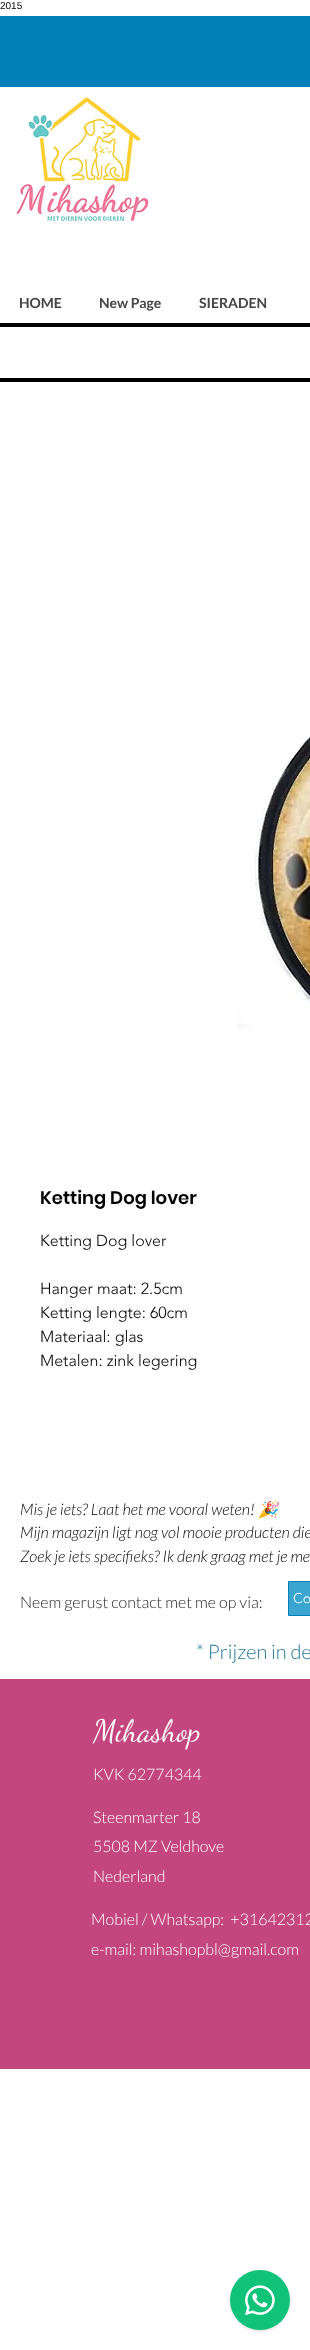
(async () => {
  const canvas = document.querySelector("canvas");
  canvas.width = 310;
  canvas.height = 2350;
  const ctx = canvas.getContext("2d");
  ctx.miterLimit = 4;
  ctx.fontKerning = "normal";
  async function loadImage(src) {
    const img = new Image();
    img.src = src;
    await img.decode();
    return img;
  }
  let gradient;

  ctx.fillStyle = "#ffffff";
  ctx.fillRect(0, 0, 310, 2350);
  ctx.fillStyle = "#0180b7";
  ctx.fillRect(0, 16, 310, 71);
  ctx.drawImage(await loadImage("img/1.png"), 16, 97, 133, 124);
  ctx.fillStyle = "#000000";
  ctx.fillRect(0, 323, 310, 4);
  ctx.fillRect(0, 378, 310, 4);
  ctx.drawImage(await loadImage("img/2.png"), 237, 736, 73, 294);
  ctx.fillStyle = "#39a5d0";
  ctx.beginPath();
  ctx.rect(288.5, 1581.5, 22, 34);
  ctx.fill();
  ctx.strokeStyle = "#0180b7";
  ctx.stroke();
  ctx.fillStyle = "#c3467e";
  ctx.fillRect(0, 1679, 196, 390);
  gradient = ctx.createLinearGradient(168, 1894, 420, 1854);
  gradient.addColorStop(1, "#c3467e");
  gradient.addColorStop(1, "#ffebff");
  ctx.fillStyle = gradient;
  ctx.fillRect(196, 1679, 114, 390);
  ctx.fillStyle = "rgba(0, 0, 0, 0.15)";
  ctx.filter = "blur(1px)";
  ctx.beginPath();
  ctx.roundRect(230, 2271, 60, 60, 30);
  ctx.fill();
  ctx.filter = "none";
  ctx.fillStyle = "#10c379";
  ctx.beginPath();
  ctx.arc(260, 2300, 30, 0, Math.PI * 2);
  ctx.fill();
  ctx.drawImage(await loadImage("img/3.png"), 245, 2285, 30, 31);
  ctx.font = "10px Liberation Sans";
  ctx.fillStyle = "#000000";
  ctx.fillText("2015", 0, 9);
  ctx.font = "bold 14px Lato";
  ctx.fillStyle = "#444444";
  for (const [text, x, y] of [
    ["HOME", 19, 308],
    ["New Page", 99, 308],
    ["SIERADEN", 199, 308],
  ]) {
    ctx.fillText(text, x, y);
  }
  ctx.font = "600 18px Poppins";
  ctx.fillStyle = "#000000";
  ctx.fillText("Ketting Dog lover", 40, 1204);
  ctx.font = "300 16px 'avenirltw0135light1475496'";
  for (const [text, x, y] of [
    ["Ketting Dog lover", 40, 1246],
    ["Hanger maat: 2.5cm", 40, 1294],
    ["Ketting lengte: 60cm", 40, 1318],
    ["Materiaal: glas", 40, 1342],
    ["Metalen: zink legering", 40, 1366],
  ]) {
    ctx.fillText(text, x, y);
  }
  ctx.font = "italic 300 16px Lato";
  ctx.fillText("Mis je iets? Laat het me vooral weten!", 20, 1515);
  ctx.font = "italic 16px Noto Color Emoji";
  ctx.fillText("🎉", 258, 1515);
  ctx.font = "italic 300 16px Lato";
  ctx.fillText("Mijn magazijn ligt nog vol mooie producten die", 20, 1538);
  ctx.fillText("Zoek je iets specifieks? Ik denk graag met je me", 20, 1562);
  ctx.font = "300 16px Lato";
  ctx.fillStyle = "#211f21";
  ctx.fillText("Neem gerust contact met me op via:", 20, 1608);
  ctx.font = "300 14px 'avenirltw0135light1475496'";
  ctx.fillStyle = "#ffffff";
  ctx.fillText("Co", 293, 1603);
  ctx.font = "300 20px Lato";
  ctx.fillStyle = "#247899";
  ctx.fillText("* Prijzen in de", 196, 1659);
  ctx.font = "31px Dancing Script";
  ctx.fillStyle = "#ffffff";
  ctx.fillText("Mihashop", 93, 1741);
  ctx.font = "300 16px Lato";
  for (const [text, x, y] of [
    ["KVK 62774344", 93, 1780],
    ["Steenmarter 18", 93, 1823],
    ["5508 MZ Veldhove", 93, 1852],
    ["Nederland", 93, 1882],
    ["Mobiel / Whatsapp:  +31642312", 91, 1925],
    ["e-mail: mihashopbl@gmail.com", 91, 1955],
  ]) {
    ctx.fillText(text, x, y);
  }
})();
